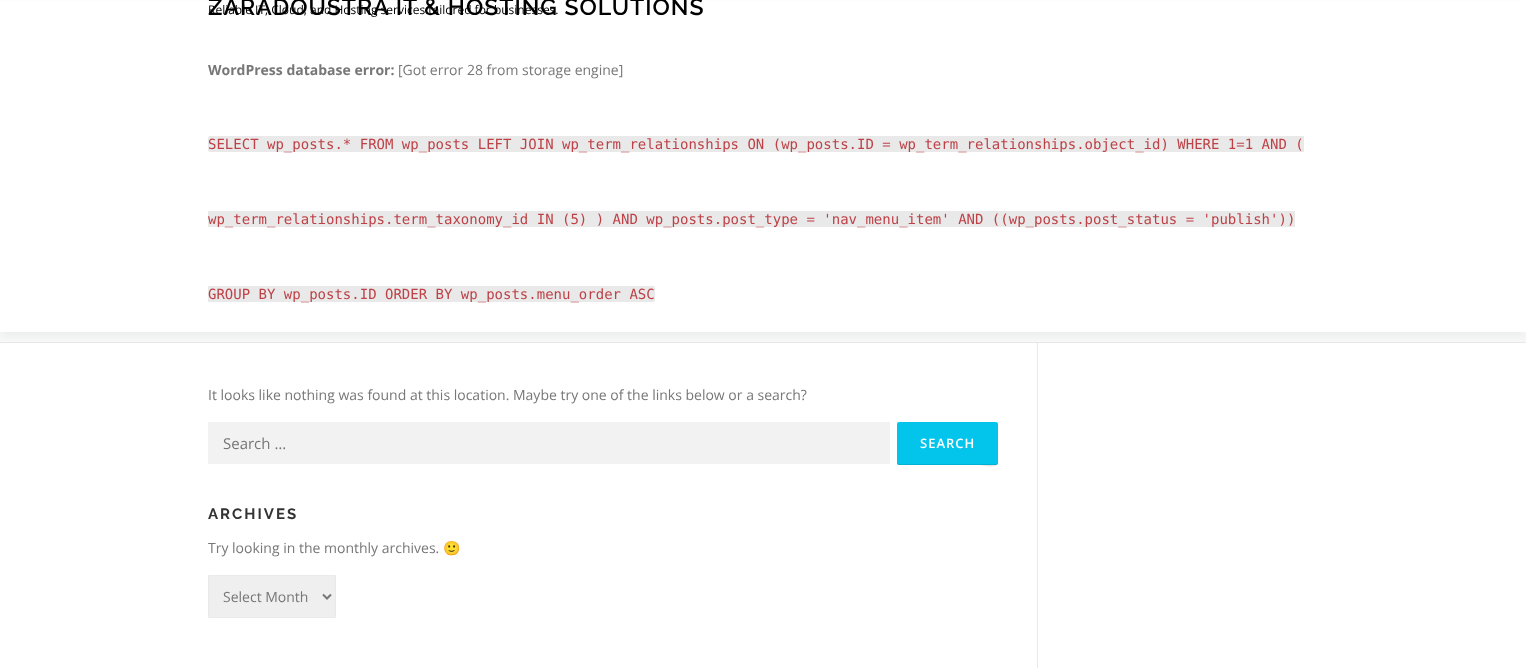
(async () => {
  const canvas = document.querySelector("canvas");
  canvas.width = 1526;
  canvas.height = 668;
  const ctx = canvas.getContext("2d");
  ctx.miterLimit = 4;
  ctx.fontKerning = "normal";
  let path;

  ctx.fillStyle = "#ffffff";
  ctx.fillRect(0, 0, 1526, 668);
  for (const [x, y, w, h, color] of [
    [0, 332, 1526, 10, "#f8f9f9"],
    [0, 342, 1526, 1, "#e9e9e9"],
    [1037, 343, 1, 325, "#e9e9e9"],
  ]) {
    ctx.fillStyle = color;
    ctx.fillRect(x, y, w, h);
  }
  ctx.fillStyle = "rgba(50, 50, 50, 0.06)";
  ctx.filter = "blur(5px)";
  ctx.beginPath();
  ctx.rect(0, 5, 1526, 332);
  ctx.fill();
  ctx.filter = "none";
  ctx.fillStyle = "#ffffff";
  ctx.fillRect(0, 1, 1526, 331);
  ctx.fillStyle = "#e9e9e9";
  ctx.beginPath();
  ctx.roundRect(208, 136, 1096, 16, [2, 0, 0, 2]);
  ctx.fill();
  ctx.fillRect(208, 211, 1087, 16);
  ctx.beginPath();
  ctx.roundRect(208, 286, 447, 16, [0, 2, 2, 0]);
  ctx.fill();
  ctx.fillStyle = "#f2f2f2";
  ctx.fillRect(208, 422, 682, 42);
  ctx.fillStyle = "#03c4eb";
  ctx.beginPath();
  ctx.roundRect(897, 422, 101, 43, 2);
  ctx.fill();
  ctx.fillStyle = "rgba(0, 0, 0, 0.1)";
  path = new Path2D("M897 462C897 463 897 465 899 465H980C981 465 998 470 998 462C998 463 997 464 996 464H899C898 464 897 463 897 462Z");
  ctx.fill(path);
  ctx.fillStyle = "#efefef";
  ctx.beginPath();
  ctx.rect(208.5, 575.5, 127, 42);
  ctx.fill();
  ctx.strokeStyle = "#e9e9e9";
  ctx.stroke();
  path = new Path2D("M323 594.5L327 598.5L331 594.5");
  ctx.strokeStyle = "#777777";
  ctx.lineWidth = 2;
  ctx.stroke(path);
  ctx.letterSpacing = "1px";
  ctx.font = "600 23px Raleway";
  ctx.fillStyle = "#000000";
  ctx.fillText("ZARADOUSTRA IT & HOSTING SOLUTIONS", 208, 15);
  ctx.letterSpacing = "0px";
  ctx.font = "12px Open Sans";
  ctx.fillText("Reliable IT, Cloud, and Hosting services tailored for businesses.", 208, 14);
  ctx.font = "bold 14px Open Sans";
  ctx.fillStyle = "#777777";
  ctx.fillText("WordPress database error:", 208, 75);
  ctx.font = "14px Open Sans";
  ctx.fillText("[Got error 28 from storage engine]", 398, 75);
  ctx.font = "14px DejaVu Sans Mono";
  ctx.fillStyle = "#bd4147";
  for (const [text, x, y] of [
    ["SELECT wp_posts.* FROM wp_posts LEFT JOIN wp_term_relationships ON (wp_posts.ID = wp_term_relationships.object_id) WHERE 1=1 AND (", 208, 149],
    ["wp_term_relationships.term_taxonomy_id IN (5) ) AND wp_posts.post_type = 'nav_menu_item' AND ((wp_posts.post_status = 'publish'))", 208, 224],
    ["GROUP BY wp_posts.ID ORDER BY wp_posts.menu_order ASC", 208, 299],
  ]) {
    ctx.fillText(text, x, y);
  }
  ctx.font = "14px Open Sans";
  ctx.fillStyle = "#777777";
  ctx.fillText("It looks like nothing was found at this location. Maybe try one of the links below or a search?", 208, 400);
  ctx.font = "15px Open Sans";
  ctx.fillText("Search …", 223, 449);
  ctx.letterSpacing = "1px";
  ctx.font = "600 13px Open Sans";
  ctx.fillStyle = "#ffffff";
  ctx.fillText("SEARCH", 920, 448);
  ctx.letterSpacing = "2px";
  ctx.font = "bold 15px Raleway";
  ctx.fillStyle = "#333333";
  ctx.fillText("ARCHIVES", 208, 519);
  ctx.letterSpacing = "0px";
  ctx.font = "14px Open Sans";
  ctx.fillStyle = "#777777";
  ctx.fillText("Try looking in the monthly archives.", 208, 553);
  ctx.font = "14px Noto Color Emoji";
  ctx.fillText("🙂", 443, 553);
  ctx.font = "14px Open Sans";
  ctx.fillText("Select Month", 223, 602);
})();
